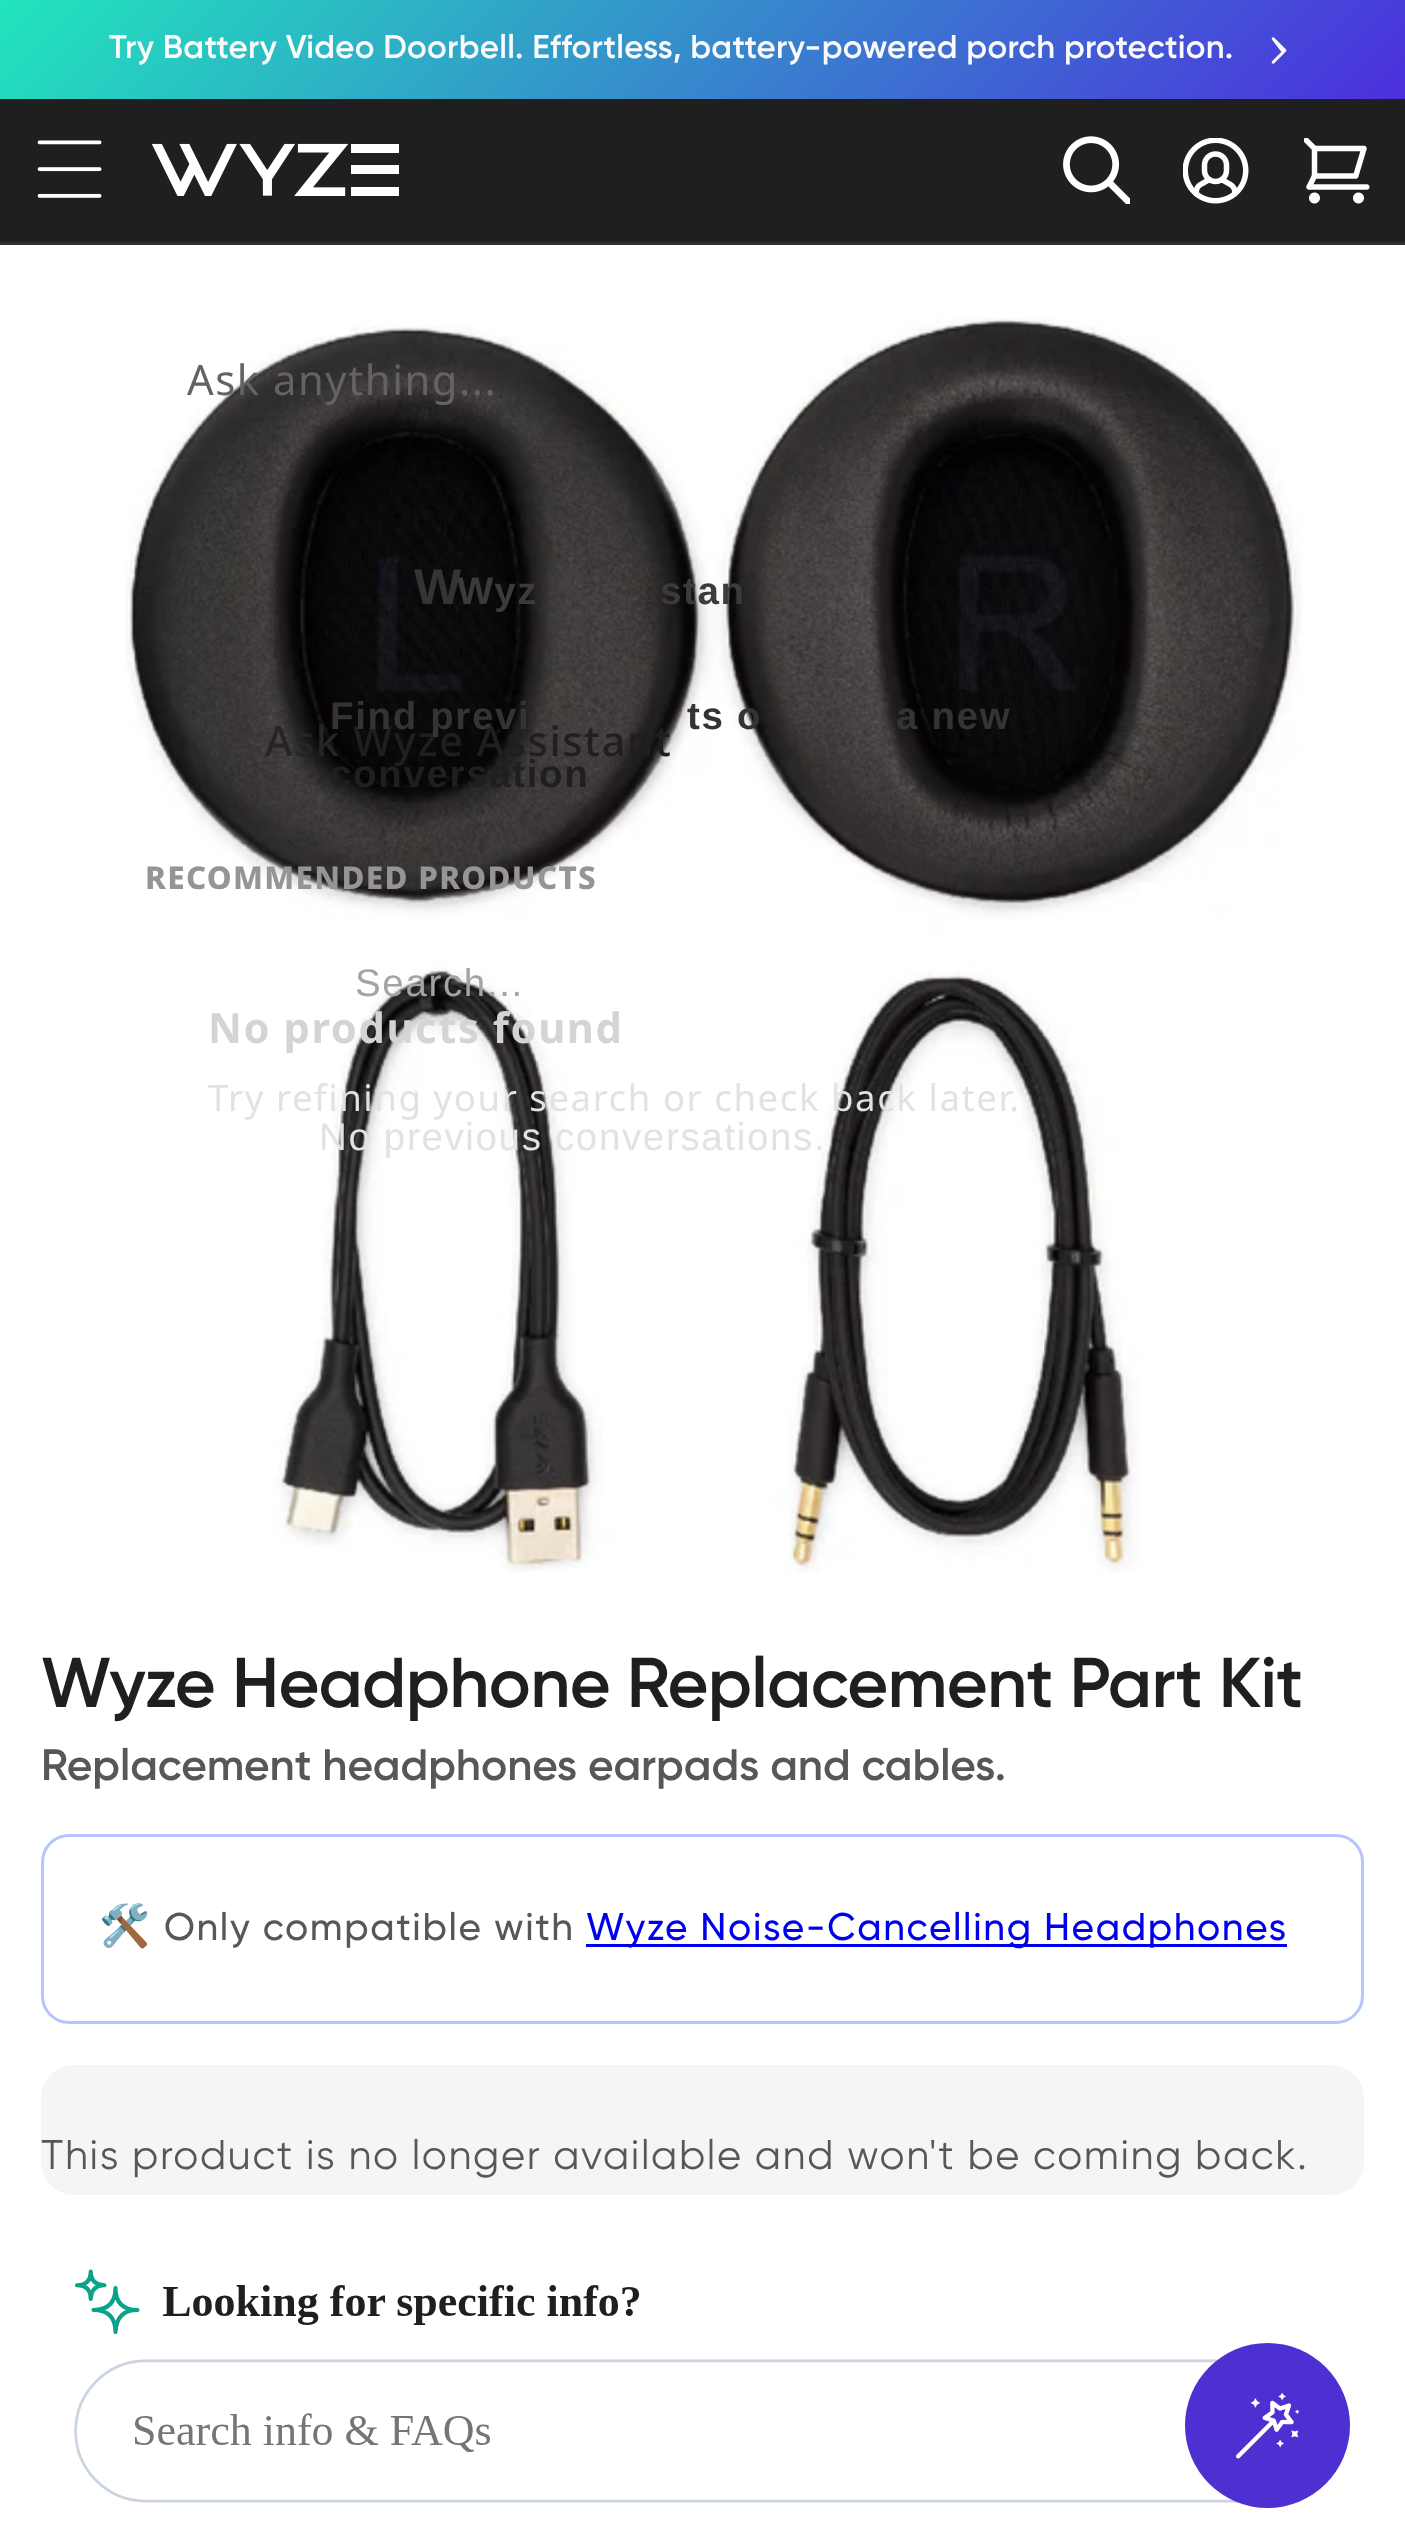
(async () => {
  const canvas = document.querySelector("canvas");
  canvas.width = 1405;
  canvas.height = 2533;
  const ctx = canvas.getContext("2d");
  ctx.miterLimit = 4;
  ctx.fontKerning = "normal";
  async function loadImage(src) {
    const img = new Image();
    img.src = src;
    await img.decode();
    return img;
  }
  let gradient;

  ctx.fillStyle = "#ffffff";
  ctx.fillRect(0, 0, 1405, 2533);
  gradient = ctx.createLinearGradient(1079, 426, 327, -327);
  gradient.addColorStop(0, "#4c2fdd");
  gradient.addColorStop(1, "#21e5bc");
  ctx.fillStyle = gradient;
  ctx.fillRect(0, 0, 1405, 99);
  ctx.drawImage(await loadImage("img/1.png"), 1271, 37, 16, 27);
  ctx.fillStyle = "#1f1f1f";
  ctx.fillRect(0, 99, 1405, 143);
  ctx.fillStyle = "#313131";
  ctx.fillRect(0, 242, 1405, 3);
  ctx.drawImage(await loadImage("img/2.png"), 37, 140, 65, 58);
  ctx.drawImage(await loadImage("img/3.png"), 151, 143, 248, 53);
  ctx.drawImage(await loadImage("img/4.png"), 1063, 136, 67, 68);
  ctx.drawImage(await loadImage("img/5.png"), 1183, 138, 66, 66);
  ctx.drawImage(await loadImage("img/6.png"), 1304, 138, 66, 66);
  ctx.drawImage(await loadImage("img/7.png"), 125, 317, 1178, 1256);
  ctx.beginPath();
  ctx.roundRect(42.5, 1835.5, 1320, 187, 26.5);
  ctx.strokeStyle = "#b8c4ff";
  ctx.lineWidth = 3;
  ctx.stroke();
  ctx.fillStyle = "#0000ee";
  ctx.fillRect(586, 1944, 701, 3);
  ctx.fillStyle = "#f5f5f5";
  ctx.beginPath();
  ctx.roundRect(41, 2065, 1323, 130, 33);
  ctx.fill();
  ctx.drawImage(await loadImage("img/8.png"), 74, 2269, 1257, 234);
  ctx.fillStyle = "#4e2fd2";
  ctx.beginPath();
  ctx.arc(1267.5, 2425.5, 82.5, 0, Math.PI * 2);
  ctx.fill();
  ctx.drawImage(await loadImage("img/9.png"), 1236, 2393, 64, 66);
  ctx.letterSpacing = "0.28px";
  ctx.font = "600 33px Gilroy";
  ctx.fillStyle = "#fafafa";
  ctx.fillText("Try Battery Video Doorbell. Effortless, battery-powered porch protection.", 109, 58);
  ctx.letterSpacing = "1.55px";
  ctx.font = "41.75px Noto Sans";
  ctx.fillStyle = "#646262";
  ctx.fillText("Ask anything...", 187, 395);
  ctx.font = "500 41.75px Noto Sans";
  ctx.fillStyle = "#272424";
  ctx.fillText("Ask", 265, 756);
  ctx.fillStyle = "#1f1f1f";
  ctx.fillText("Wyze Assistant", 353, 756);
  ctx.letterSpacing = "1.3px";
  ctx.font = "800 31.4px Noto Sans";
  ctx.fillStyle = "#969595";
  ctx.fillText("RECOMMENDED PRODUCTS", 145, 889);
  ctx.letterSpacing = "1.55px";
  ctx.font = "bold 41.75px Noto Sans";
  ctx.fillStyle = "#d4d4d4";
  ctx.fillText("No products found", 208, 1043);
  ctx.font = "36.6px Noto Sans";
  ctx.fillStyle = "#e2e2e2";
  ctx.fillText("Try refining your search or check back later.", 208, 1111);
  ctx.letterSpacing = "1.65px";
  ctx.font = "bold 38.5px Liberation Sans";
  ctx.fillStyle = "#3c3a3a";
  ctx.fillText("Wyz", 457, 604);
  ctx.font = "bold 50px Liberation Sans";
  ctx.fillStyle = "#363334";
  ctx.fillText("W", 414, 604);
  ctx.font = "bold 38.5px Liberation Sans";
  ctx.fillStyle = "#3c3a3a";
  ctx.fillText("stan", 660, 604);
  ctx.fillStyle = "#363334";
  for (const [text, x, y] of [
    ["Find previ", 330, 729],
    ["ts o", 687, 729],
    ["a new", 896, 729],
  ]) {
    ctx.fillText(text, x, y);
  }
  ctx.fillStyle = "#1f1f1f";
  ctx.fillText("conversation", 330, 787);
  ctx.font = "38.5px Liberation Sans";
  ctx.fillStyle = "#a5a4a4";
  ctx.fillText("Search...", 355, 996);
  ctx.fillStyle = "#e2e2e2";
  ctx.fillText("No previous conversations.", 319, 1150);
  ctx.letterSpacing = "-0.7px";
  ctx.font = "600 70.4px Gilroy";
  ctx.fillStyle = "#1f1f1f";
  ctx.fillText("Wyze Headphone Replacement Part Kit", 41, 1707);
  ctx.letterSpacing = "-0.05px";
  ctx.font = "600 44px Gilroy";
  ctx.fillStyle = "#575757";
  ctx.fillText("Replacement headphones earpads and cables.", 41, 1780);
  ctx.letterSpacing = "1.65px";
  ctx.font = "41.25px Noto Color Emoji";
  ctx.fillText("🛠️", 99, 1940);
  ctx.font = "500 38.5px Gilroy";
  ctx.fillText("Only compatible with", 164, 1940);
  ctx.fillStyle = "#0000ee";
  ctx.fillText("Wyze Noise-Cancelling Headphones", 586, 1940);
  ctx.font = "41.25px Gilroy";
  ctx.fillStyle = "#575757";
  ctx.fillText("This product is no longer available and won't be coming back.", 41, 2169);
})();
